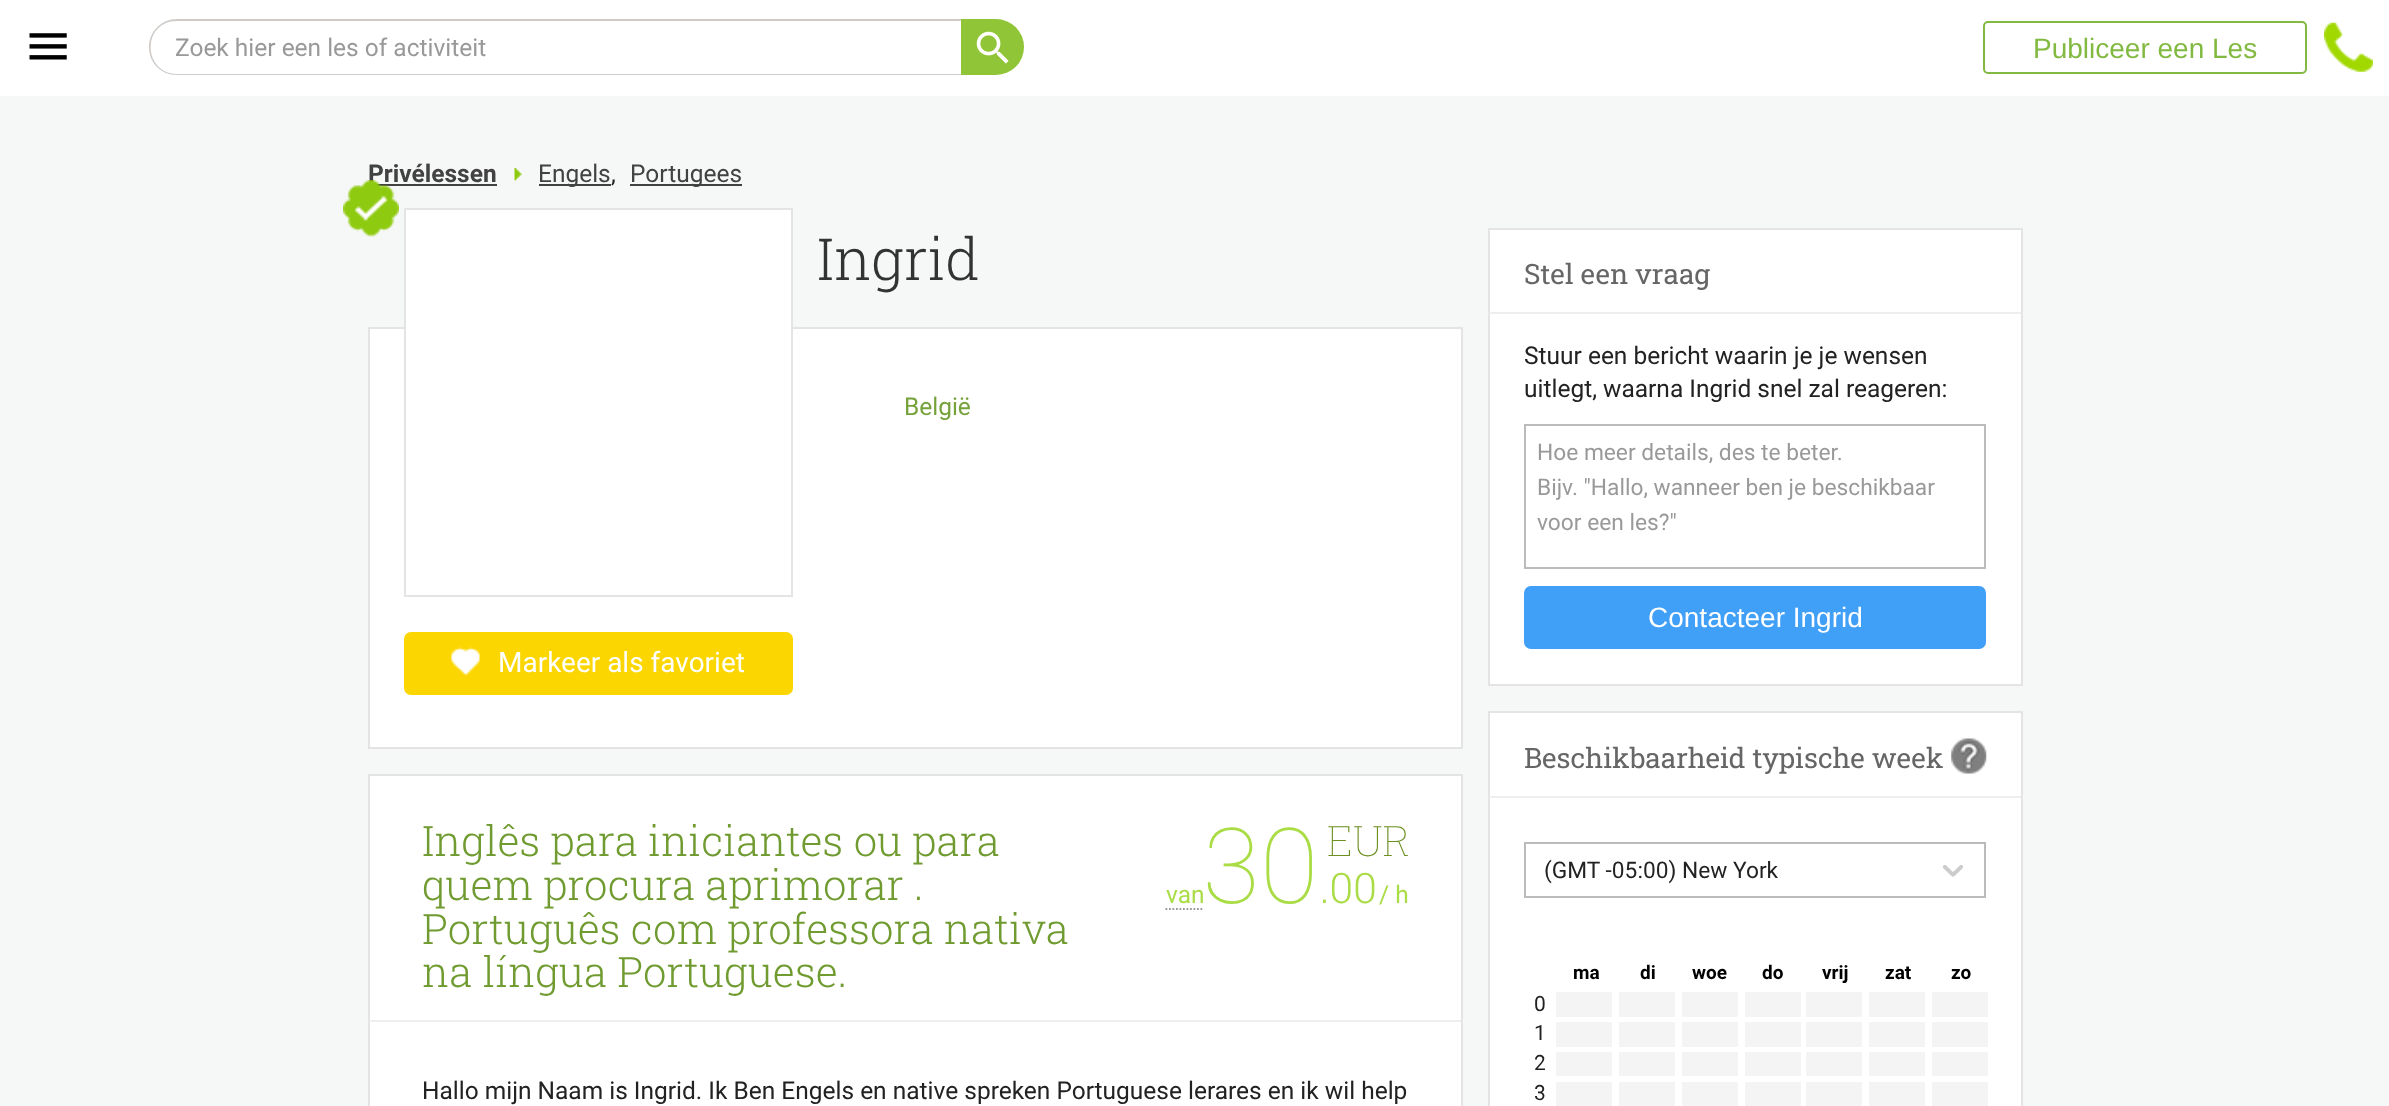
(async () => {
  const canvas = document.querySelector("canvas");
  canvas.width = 2389;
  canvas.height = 1106;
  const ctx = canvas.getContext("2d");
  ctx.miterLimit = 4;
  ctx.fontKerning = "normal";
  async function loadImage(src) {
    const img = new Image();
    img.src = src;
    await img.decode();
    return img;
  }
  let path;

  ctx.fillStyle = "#f6f8f7";
  ctx.fillRect(0, 0, 2389, 1106);
  ctx.fillStyle = "#ffffff";
  ctx.fillRect(0, 0, 2389, 96);
  ctx.drawImage(await loadImage("img/1.png"), 29, 33, 38, 27);
  ctx.fillStyle = "#cfcbc8";
  path = new Path2D("M177 19H961V75H177C161 75 149 63 149 47C149 32 161 19 177 19ZM177 21H961V74H177C142 73 142 21 177 21Z");
  ctx.fill(path, "evenodd");
  ctx.fillStyle = "#90c537";
  ctx.beginPath();
  ctx.roundRect(961, 19, 63, 56, [0, 28, 28, 0]);
  ctx.fill();
  ctx.drawImage(await loadImage("img/2.png"), 976, 31, 33, 33);
  ctx.beginPath();
  ctx.roundRect(1984, 22, 322, 51, 4);
  ctx.strokeStyle = "#82b941";
  ctx.lineWidth = 2;
  ctx.stroke();
  ctx.drawImage(await loadImage("img/3.png"), 2324, 22, 49, 50);
  ctx.fillStyle = "#424242";
  ctx.fillRect(368, 184, 129, 2);
  ctx.drawImage(await loadImage("img/4.png"), 514, 168, 8, 13);
  ctx.fillRect(539, 184, 72, 2);
  ctx.fillRect(630, 184, 112, 2);
  ctx.fillStyle = "#ffffff";
  ctx.beginPath();
  ctx.rect(369, 328, 1093, 420);
  ctx.fill();
  ctx.strokeStyle = "#e4e4e4";
  ctx.stroke();
  ctx.fillRect(404, 210, 389, 119);
  ctx.strokeRect(405, 209, 387, 387);
  ctx.fillStyle = "#fbd600";
  ctx.beginPath();
  ctx.roundRect(404, 632, 389, 63, 7);
  ctx.fill();
  ctx.drawImage(await loadImage("img/6.png"), 451, 647, 29, 29);
  ctx.fillStyle = "#ffffff";
  ctx.beginPath();
  ctx.rect(369, 775, 1093, 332);
  ctx.fill();
  ctx.stroke();
  ctx.fillStyle = "#eeeeee";
  ctx.fillRect(369, 1020, 1092, 2);
  path = new Path2D("M1165.5 909H1204");
  ctx.strokeStyle = "#999999";
  ctx.lineWidth = 1.8;
  ctx.setLineDash([1.75, 1.75]);
  ctx.stroke(path);
  ctx.fillStyle = "#ffffff";
  ctx.beginPath();
  ctx.rect(1489, 229, 533, 456);
  ctx.fill();
  ctx.strokeStyle = "#e4e4e4";
  ctx.lineWidth = 2;
  ctx.setLineDash([]);
  ctx.stroke();
  ctx.fillStyle = "#eeeeee";
  ctx.fillRect(1489, 312, 532, 2);
  ctx.strokeStyle = "#bbbbbb";
  ctx.strokeRect(1525, 425, 460, 143);
  ctx.fillStyle = "#409ff7";
  ctx.beginPath();
  ctx.roundRect(1524, 586, 462, 63, 7);
  ctx.fill();
  ctx.fillStyle = "#ffffff";
  ctx.beginPath();
  ctx.rect(1489, 712, 533, 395);
  ctx.fill();
  ctx.strokeStyle = "#e4e4e4";
  ctx.stroke();
  ctx.fillStyle = "#eeeeee";
  ctx.fillRect(1489, 796, 532, 2);
  ctx.drawImage(await loadImage("img/7.png"), 1951, 738, 36, 36);
  ctx.strokeStyle = "#bbbbbb";
  ctx.strokeRect(1525, 843, 460, 54);
  ctx.drawImage(await loadImage("img/8.png"), 1942, 864, 21, 13);
  for (const [x, y, w, h, color] of [
    [1556, 992, 56, 25, "#f4f4f4"],
    [1619, 992, 56, 25, "#f4f4f4"],
    [1682, 992, 56, 25, "#f4f4f4"],
    [1745, 992, 56, 25, "#f4f4f4"],
    [1806, 992, 56, 25, "#f4f4f4"],
    [1869, 992, 56, 25, "#f4f4f4"],
    [1932, 992, 56, 25, "#f4f4f4"],
    [1556, 1022, 56, 25, "#f4f4f4"],
    [1619, 1022, 56, 25, "#f4f4f4"],
    [1682, 1022, 56, 25, "#f4f4f4"],
    [1745, 1022, 56, 25, "#f4f4f4"],
    [1806, 1022, 56, 25, "#f4f4f4"],
    [1869, 1022, 56, 25, "#f4f4f4"],
    [1932, 1022, 56, 25, "#f4f4f4"],
    [1556, 1052, 56, 24, "#f4f4f4"],
    [1619, 1052, 56, 24, "#f4f4f4"],
    [1682, 1052, 56, 24, "#f4f4f4"],
    [1745, 1052, 56, 24, "#f4f4f4"],
    [1806, 1052, 56, 24, "#f4f4f4"],
    [1869, 1052, 56, 24, "#f4f4f4"],
    [1932, 1052, 56, 24, "#f4f4f4"],
    [1556, 1082, 56, 24, "#f4f4f4"],
    [1619, 1082, 56, 24, "#f4f4f4"],
    [1682, 1082, 56, 24, "#f4f4f4"],
    [1745, 1082, 56, 24, "#f4f4f4"],
    [1806, 1082, 56, 24, "#f4f4f4"],
    [1869, 1082, 56, 24, "#f4f4f4"],
    [1932, 1082, 56, 24, "#f4f4f4"],
  ]) {
    ctx.fillStyle = color;
    ctx.fillRect(x, y, w, h);
  }
  ctx.font = "24.5px Roboto";
  ctx.fillStyle = "#999999";
  ctx.fillText("Zoek hier een les of activiteit", 175, 56);
  ctx.font = "28px Liberation Sans";
  ctx.fillStyle = "#82b941";
  ctx.fillText("Publiceer een Les", 2033, 58);
  ctx.font = "bold 24.5px Roboto";
  ctx.fillStyle = "#424242";
  ctx.fillText("Privélessen", 368, 182);
  ctx.font = "24.5px Roboto";
  ctx.fillText("Engels", 538, 182);
  ctx.fillText("Portugees", 630, 182);
  ctx.fillStyle = "#222222";
  ctx.fillText(",", 611, 182);
  ctx.font = "300 58px Roboto Slab";
  ctx.fillStyle = "#333333";
  ctx.fillText("Ingrid", 817, 280);
  ctx.font = "24.5px Roboto";
  ctx.fillStyle = "#75a23b";
  ctx.fillText("België", 904, 415);
  ctx.drawImage(await loadImage("img/5.png"), 343, 180, 56, 57);
  ctx.font = "28px Roboto";
  ctx.fillStyle = "#ffffff";
  ctx.fillText("Markeer als favoriet", 498, 672);
  ctx.font = "300 42px Roboto Slab";
  ctx.fillStyle = "#709b30";
  for (const [text, x, y] of [
    ["Inglês para iniciantes ou para", 422, 856],
    ["quem procura aprimorar .", 422, 900],
    ["Português com professora nativa", 422, 944],
    ["na língua Portuguese.", 422, 987],
  ]) {
    ctx.fillText(text, x, y);
  }
  ctx.font = "100 105px Roboto Slab";
  ctx.fillStyle = "#aadc45";
  ctx.fillText("30", 1204, 903);
  ctx.font = "100 42px Roboto Slab";
  ctx.fillStyle = "#6c8f1f";
  ctx.fillText("EUR", 1327, 856);
  ctx.font = "300 42px Roboto Slab";
  ctx.fillStyle = "#aadc45";
  ctx.fillText(".00", 1320, 903);
  ctx.font = "24.5px Roboto";
  ctx.fillText("van", 1166, 903);
  ctx.fillText("/ h", 1379, 903);
  ctx.fillStyle = "#222222";
  ctx.fillText("Hallo mijn Naam is Ingrid. Ik Ben Engels en native spreken Portuguese lerares en ik wil help", 422, 1099);
  ctx.font = "28px Roboto Slab";
  ctx.fillStyle = "#666666";
  ctx.fillText("Stel een vraag", 1524, 284);
  ctx.font = "24.5px Roboto";
  ctx.fillStyle = "#222222";
  ctx.fillText("Stuur een bericht waarin je je wensen", 1524, 364);
  ctx.fillText("uitlegt, waarna Ingrid snel zal reageren:", 1524, 397);
  ctx.font = "22.75px Roboto";
  ctx.fillStyle = "#999999";
  for (const [text, x, y] of [
    ["Hoe meer details, des te beter.", 1537, 460],
    ["Bijv. \"Hallo, wanneer ben je beschikbaar", 1537, 495],
    ["voor een les?\"", 1537, 530],
  ]) {
    ctx.fillText(text, x, y);
  }
  ctx.font = "28px Liberation Sans";
  ctx.fillStyle = "#ffffff";
  ctx.fillText("Contacteer Ingrid", 1648, 627);
  ctx.font = "28px Roboto Slab";
  ctx.fillStyle = "#666666";
  ctx.fillText("Beschikbaarheid typische week", 1524, 768);
  ctx.font = "22.75px Roboto";
  ctx.fillStyle = "#222222";
  ctx.fillText("(GMT -05:00) New York", 1544, 878);
  ctx.font = "bold 19px Roboto";
  ctx.fillStyle = "#000000";
  for (const [text, x, y] of [
    ["ma", 1573, 979],
    ["di", 1640, 979],
    ["woe", 1692, 979],
    ["do", 1762, 979],
    ["vrij", 1822, 979],
    ["zat", 1885, 979],
    ["zo", 1951, 979],
  ]) {
    ctx.fillText(text, x, y);
  }
  ctx.font = "21px Roboto";
  ctx.fillStyle = "#222222";
  for (const [text, x, y] of [
    ["0", 1534, 1011],
    ["1", 1534, 1040],
    ["2", 1534, 1070],
    ["3", 1534, 1100],
  ]) {
    ctx.fillText(text, x, y);
  }
})();
